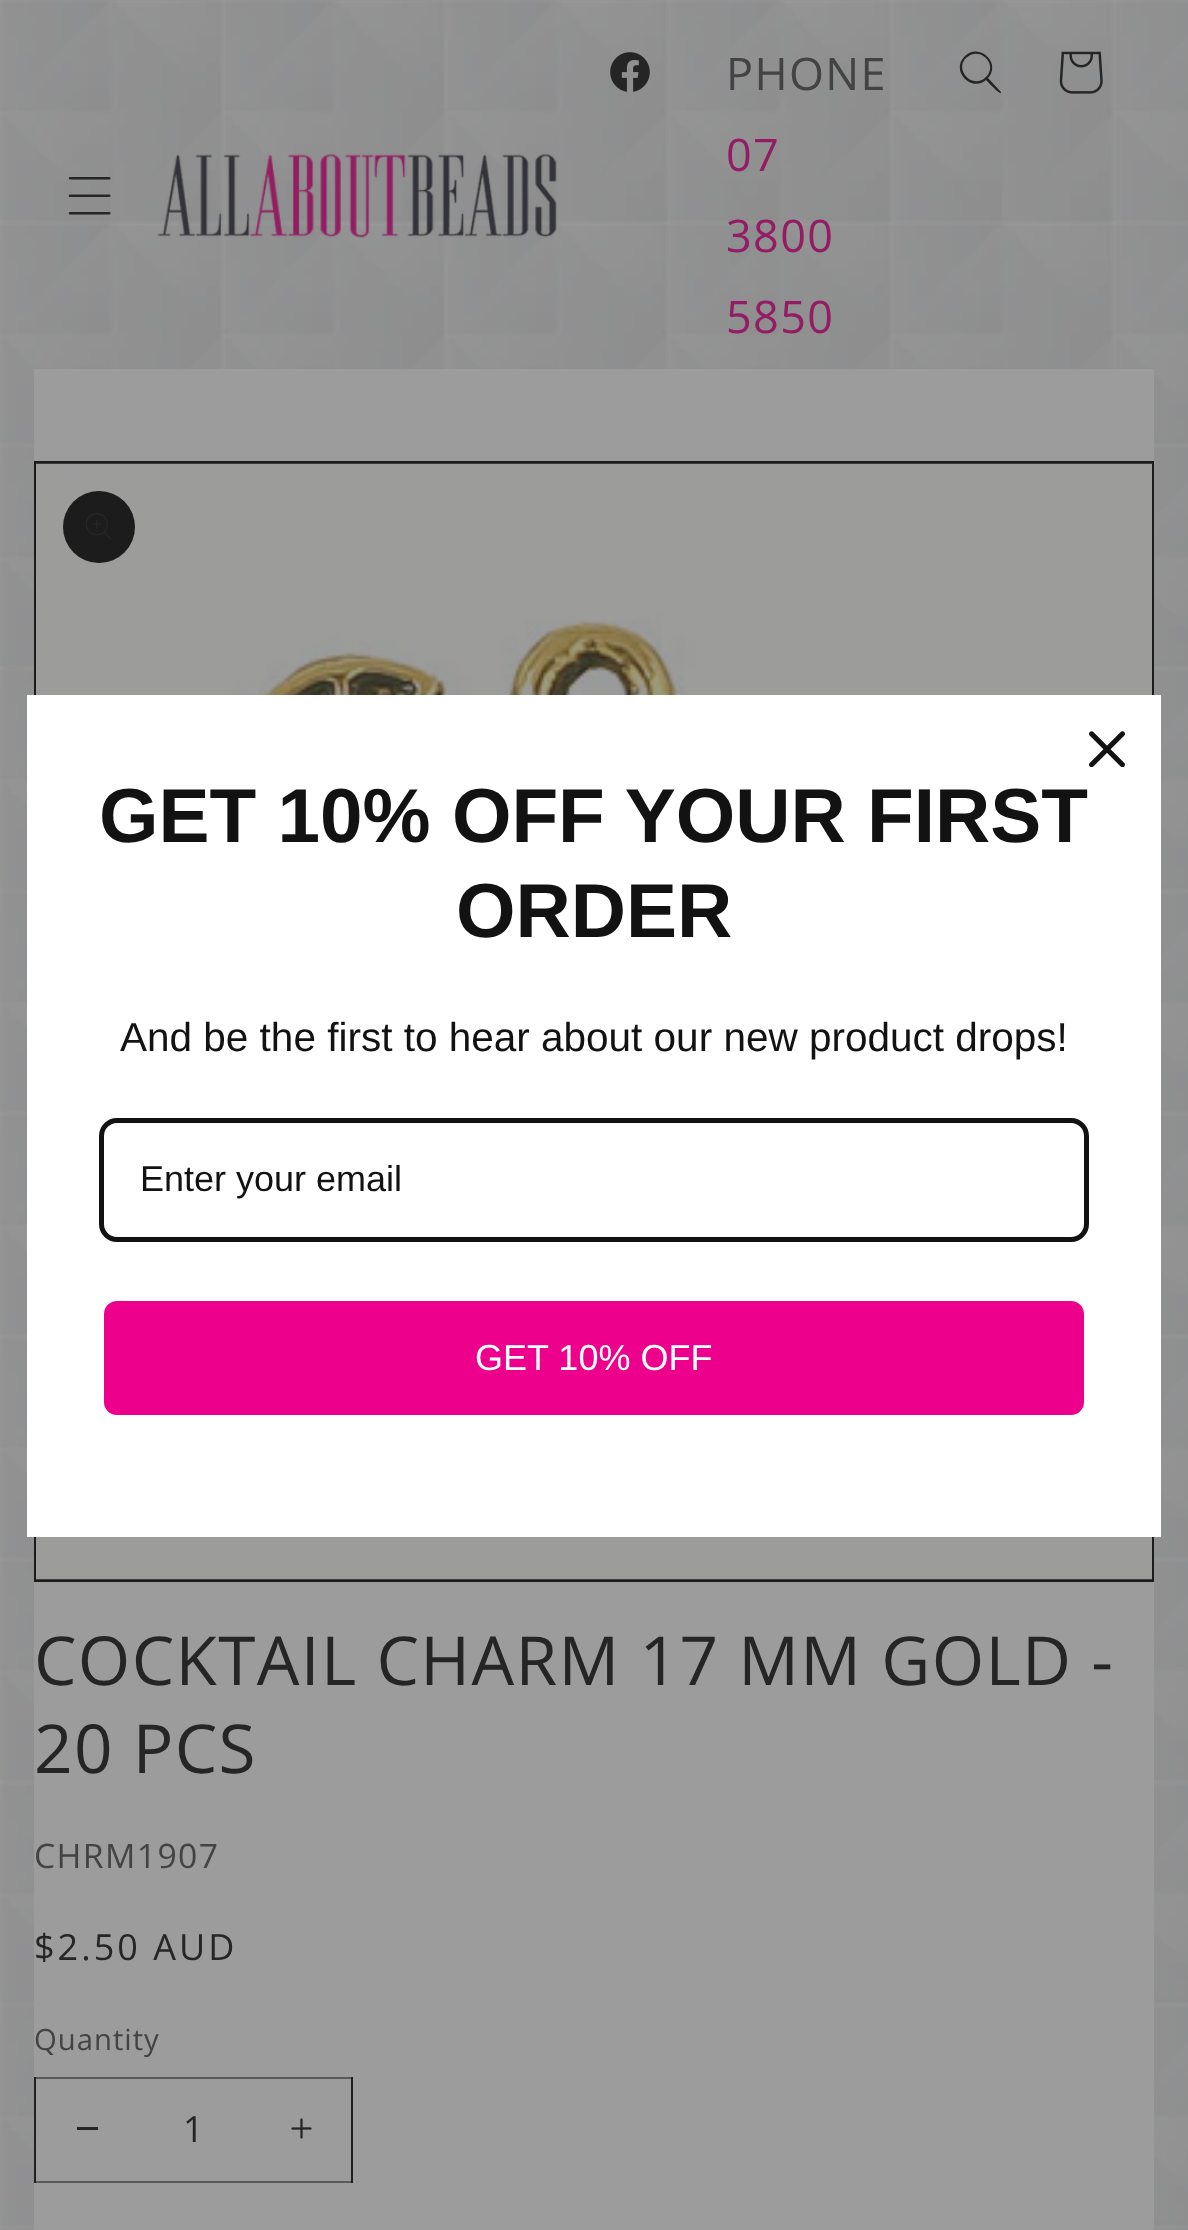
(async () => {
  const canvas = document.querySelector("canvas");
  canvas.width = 1188;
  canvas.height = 2230;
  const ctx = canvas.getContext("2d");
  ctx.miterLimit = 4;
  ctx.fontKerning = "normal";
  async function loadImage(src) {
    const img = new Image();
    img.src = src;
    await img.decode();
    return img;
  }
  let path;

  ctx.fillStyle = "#ffffff";
  ctx.fillRect(0, 0, 1188, 2230);
  ctx.drawImage(await loadImage("img/1.png"), 0, 0, 1188, 2230);
  ctx.drawImage(await loadImage("img/2.png"), 68, 177, 43, 38);
  ctx.drawImage(await loadImage("img/3.png"), 157, 153, 400, 86);
  ctx.drawImage(await loadImage("img/4.png"), 610, 52, 40, 40);
  ctx.fillStyle = "#252525";
  path = new Path2D("M986 77C973 90 954 70 966 58C979 45 999 64 986 77ZM986 80C971 93 950 70 965 56C979 42 1002 63 988 78L1001 92V93C999 94 988 82 986 80Z");
  ctx.fill(path, "evenodd");
  ctx.drawImage(await loadImage("img/5.png"), 1059, 51, 44, 43);
  ctx.fillStyle = "#9c9c9c";
  ctx.fillRect(34, 369, 1120, 1861);
  ctx.fillStyle = "#1c1c1c";
  ctx.fillRect(34, 461, 1120, 1121);
  ctx.drawImage(await loadImage("img/7.png"), 36, 463, 1116, 1117);
  ctx.fillStyle = "#ffffff";
  ctx.fillRect(27, 695, 1134, 842);
  ctx.drawImage(await loadImage("img/6.png"), 1089, 731, 36, 36);
  ctx.beginPath();
  ctx.roundRect(101.5, 1120.5, 985, 119, 15.5);
  ctx.strokeStyle = "#121212";
  ctx.lineWidth = 5;
  ctx.stroke();
  ctx.fillStyle = "#ec008c";
  ctx.beginPath();
  ctx.roundRect(101.5, 1298.5, 985, 119, 15.5);
  ctx.fill();
  ctx.strokeStyle = "#ffffff";
  ctx.stroke();
  ctx.fillStyle = "#1c1c1c";
  ctx.beginPath();
  ctx.arc(99, 527, 36, 0, Math.PI * 2);
  ctx.fill();
  ctx.beginPath();
  ctx.arc(99, 527, 35, 0, Math.PI * 2);
  ctx.strokeStyle = "rgba(37, 37, 37, 0.1)";
  ctx.lineWidth = 2;
  ctx.stroke();
  ctx.drawImage(await loadImage("img/8.png"), 86, 513, 26, 27);
  for (const [x, y, w, h, color] of [
    [34, 2077, 319, 106, "#1c1c1c"],
    [36, 2077, 315, 106, "#9c9c9c"],
    [77, 2127, 21, 3, "#252525"],
  ]) {
    ctx.fillStyle = color;
    ctx.fillRect(x, y, w, h);
  }
  ctx.drawImage(await loadImage("img/9.png"), 291, 2118, 21, 21);
  ctx.strokeStyle = "rgba(37, 37, 37, 0.55)";
  ctx.strokeRect(35, 2078, 317, 104);
  ctx.letterSpacing = "1.35px";
  ctx.font = "45px Open Sans";
  ctx.fillStyle = "#434343";
  ctx.fillText("PHONE", 726, 90);
  ctx.fillStyle = "#931c62";
  for (const [text, x, y] of [
    ["07", 726, 171],
    ["3800", 726, 252],
    ["5850", 726, 333],
  ]) {
    ctx.fillText(text, x, y);
  }
  ctx.letterSpacing = "0px";
  ctx.font = "bold 76.5px Liberation Sans";
  ctx.fillStyle = "#121212";
  ctx.fillText("GET 10% OFF YOUR FIRST", 99, 842);
  ctx.fillText("ORDER", 456, 937);
  ctx.font = "40.5px Liberation Sans";
  ctx.fillText("And be the first to hear about our new product drops!", 120, 1051);
  ctx.font = "36px Liberation Sans";
  ctx.fillText("Enter your email", 140, 1191);
  ctx.fillStyle = "#ffffff";
  ctx.fillText("GET 10% OFF", 475, 1370);
  ctx.letterSpacing = "1.35px";
  ctx.font = "67.5px Open Sans";
  ctx.fillStyle = "#252525";
  ctx.fillText("COCKTAIL CHARM 17 MM GOLD -", 34, 1685);
  ctx.fillText("20 PCS", 34, 1773);
  ctx.font = "33.75px Open Sans";
  ctx.fillStyle = "#434343";
  ctx.fillText("CHRM1907", 34, 1868);
  ctx.letterSpacing = "3px";
  ctx.font = "36px Open Sans";
  ctx.fillStyle = "#252525";
  ctx.fillText("$2.50 AUD", 34, 1960);
  ctx.letterSpacing = "1px";
  ctx.font = "29.25px Open Sans";
  ctx.fillStyle = "#434343";
  ctx.fillText("Quantity", 34, 2050);
  ctx.letterSpacing = "0px";
  ctx.font = "36px Open Sans";
  ctx.fillStyle = "#252525";
  ctx.fillText("1", 183, 2142);
})();
